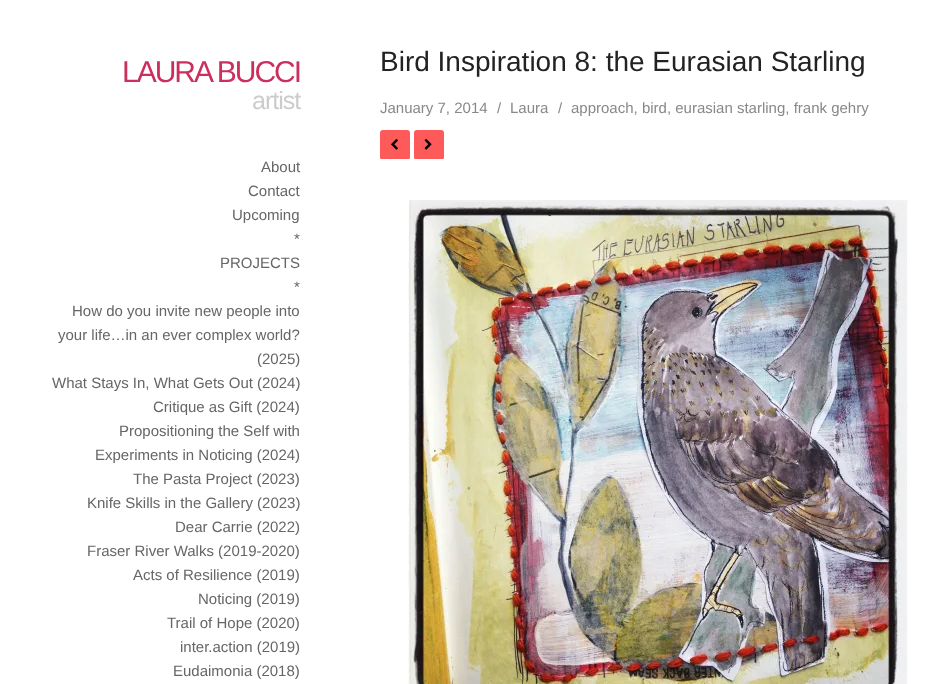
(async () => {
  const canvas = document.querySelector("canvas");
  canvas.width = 935;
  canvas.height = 684;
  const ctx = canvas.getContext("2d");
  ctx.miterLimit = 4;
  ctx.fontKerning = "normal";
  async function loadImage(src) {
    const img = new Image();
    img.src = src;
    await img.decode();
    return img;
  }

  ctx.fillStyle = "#ffffff";
  ctx.fillRect(0, 0, 935, 684);
  ctx.fillStyle = "#ff5a5a";
  ctx.beginPath();
  ctx.roundRect(380, 130, 30, 30, 3);
  ctx.fill();
  ctx.drawImage(await loadImage("img/1.png"), 391, 138, 7, 12);
  ctx.beginPath();
  ctx.roundRect(414, 130, 30, 30, 3);
  ctx.fill();
  ctx.drawImage(await loadImage("img/2.png"), 424, 138, 8, 12);
  ctx.fillStyle = "#ffffff";
  ctx.fillRect(380, 159, 64, 1);
  ctx.drawImage(await loadImage("img/3.png"), 408, 200, 500, 484);
  ctx.letterSpacing = "-2px";
  ctx.font = "30px Liberation Sans";
  ctx.fillStyle = "#cc2e5e";
  ctx.fillText("LAURA BUCCI", 122, 82);
  ctx.letterSpacing = "-1px";
  ctx.font = "25px Liberation Sans";
  ctx.fillStyle = "#cccccc";
  ctx.fillText("artist", 252, 109);
  ctx.letterSpacing = "0px";
  ctx.font = "15px Liberation Sans";
  ctx.fillStyle = "#666666";
  for (const [text, x, y] of [
    ["About", 261, 172],
    ["Contact", 248, 196],
    ["Upcoming", 232, 220],
    ["*", 294, 244],
    ["PROJECTS", 220, 268],
    ["*", 294, 292],
    ["How do you invite new people into", 72, 316],
    ["your life…in an ever complex world?", 58, 340],
    ["(2025)", 257, 364],
    ["What Stays In, What Gets Out (2024)", 52, 388],
    ["Critique as Gift (2024)", 153, 412],
    ["Propositioning the Self with", 119, 436],
    ["Experiments in Noticing (2024)", 95, 460],
    ["The Pasta Project (2023)", 133, 484],
    ["Knife Skills in the Gallery (2023)", 87, 508],
    ["Dear Carrie (2022)", 175, 532],
    ["Fraser River Walks (2019-2020)", 87, 556],
    ["Acts of Resilience (2019)", 133, 580],
    ["Noticing (2019)", 198, 604],
    ["Trail of Hope (2020)", 167, 628],
    ["inter.action (2019)", 180, 652],
    ["Eudaimonia (2018)", 173, 676],
  ]) {
    ctx.fillText(text, x, y);
  }
  ctx.font = "28px Liberation Sans";
  ctx.fillStyle = "#222222";
  ctx.fillText("Bird Inspiration 8: the Eurasian Starling", 380, 71);
  ctx.font = "15px Liberation Sans";
  ctx.fillStyle = "#888888";
  for (const [text, x, y] of [
    ["January 7, 2014", 380, 113],
    ["/", 497, 113],
    ["Laura", 510, 113],
    ["/", 558, 113],
    ["approach, bird, eurasian starling, frank gehry", 571, 113],
  ]) {
    ctx.fillText(text, x, y);
  }
})();
